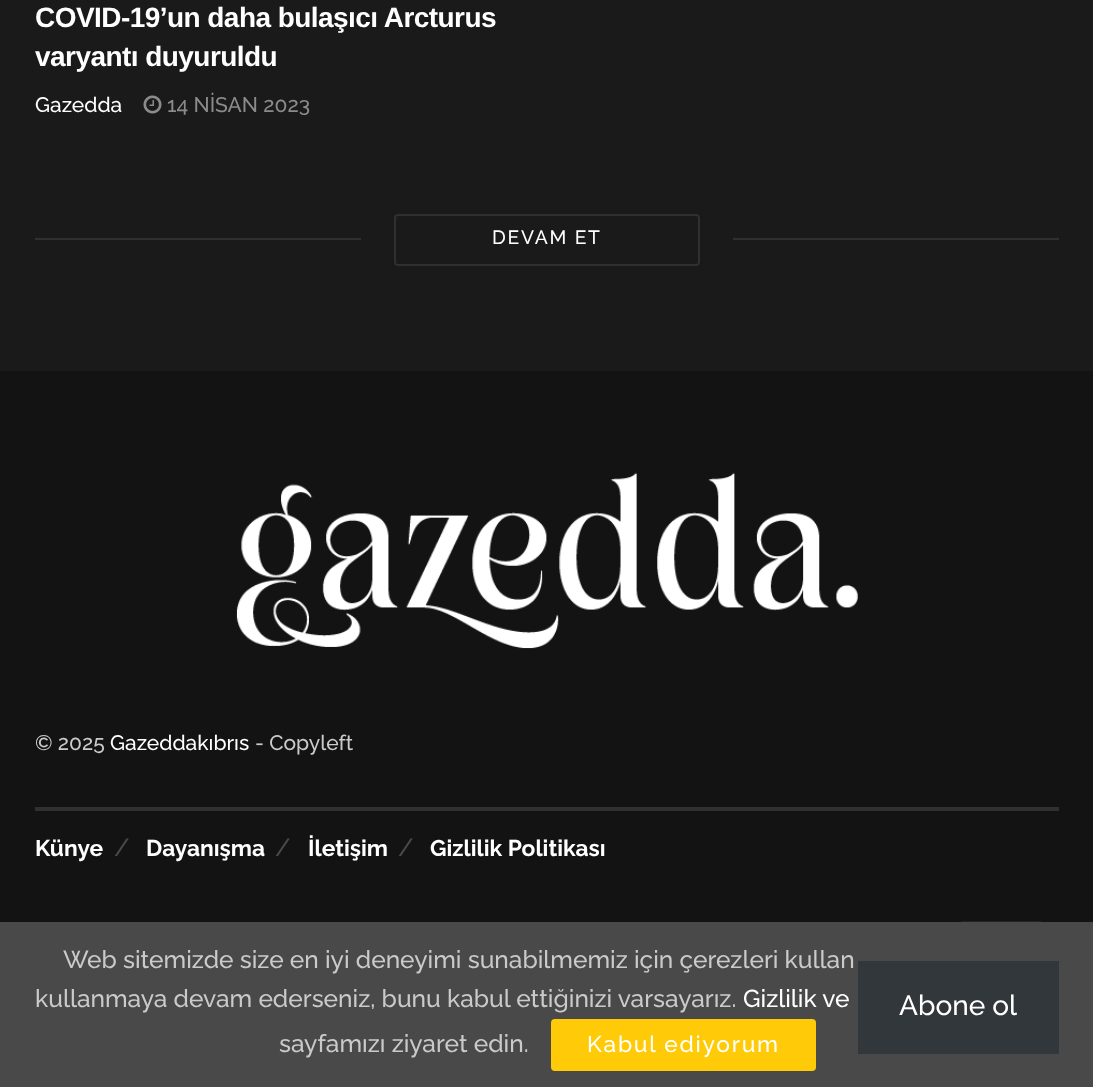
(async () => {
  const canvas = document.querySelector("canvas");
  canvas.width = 1093;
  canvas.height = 1087;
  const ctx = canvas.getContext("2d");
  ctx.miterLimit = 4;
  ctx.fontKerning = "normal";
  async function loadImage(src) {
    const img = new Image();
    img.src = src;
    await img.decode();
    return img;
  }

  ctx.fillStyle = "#1a1a1a";
  ctx.fillRect(0, 0, 1093, 1087);
  ctx.drawImage(await loadImage("img/1.png"), 143, 95, 19, 19);
  ctx.beginPath();
  ctx.roundRect(395, 215, 304, 50, 3);
  ctx.strokeStyle = "#303030";
  ctx.lineWidth = 2;
  ctx.stroke();
  for (const [x, y, w, h, color] of [
    [35, 238, 326, 2, "#303030"],
    [733, 238, 326, 2, "#303030"],
    [0, 371, 1093, 551, "#131313"],
    [961, 921, 80, 1, "#262626"],
  ]) {
    ctx.fillStyle = color;
    ctx.fillRect(x, y, w, h);
  }
  ctx.drawImage(await loadImage("img/2.png"), 236, 472, 622, 177);
  ctx.fillStyle = "#303030";
  ctx.fillRect(35, 807, 1024, 4);
  ctx.strokeStyle = "rgba(0, 0, 0, 0.09)";
  ctx.strokeRect(962, 922, 78, 78);
  ctx.fillStyle = "#494949";
  ctx.fillRect(0, 922, 1093, 165);
  ctx.fillStyle = "#ffcb09";
  ctx.beginPath();
  ctx.roundRect(551, 1019, 265, 52, 4);
  ctx.fill();
  ctx.fillStyle = "#32373c";
  ctx.fillRect(858, 961, 201, 93);
  ctx.letterSpacing = "-0.55px";
  ctx.font = "bold 28px Liberation Sans";
  ctx.fillStyle = "#ffffff";
  ctx.fillText("COVID-19’un daha bulaşıcı Arcturus", 35, 27);
  ctx.fillText("varyantı duyuruldu", 35, 66);
  ctx.letterSpacing = "0px";
  ctx.font = "500 21px Raleway";
  ctx.fillText("Gazedda", 35, 112);
  ctx.fillStyle = "#8b8b8b";
  ctx.fillText("14 NİSAN 2023", 167, 112);
  ctx.letterSpacing = "1.75px";
  ctx.font = "500 19.25px Raleway";
  ctx.fillStyle = "#ffffff";
  ctx.fillText("DEVAM ET", 492, 244);
  ctx.letterSpacing = "0px";
  ctx.font = "500 21px Raleway";
  ctx.fillStyle = "#cacaca";
  ctx.fillText("© 2025", 35, 750);
  ctx.fillStyle = "#ffffff";
  ctx.fillText("Gazeddakıbrıs", 110, 750);
  ctx.fillStyle = "#cacaca";
  ctx.fillText("- Copyleft", 255, 750);
  ctx.font = "bold 22.75px Raleway";
  ctx.fillStyle = "#ffffff";
  ctx.fillText("Künye", 35, 856);
  ctx.font = "500 24.5px Raleway";
  ctx.fillStyle = "#494949";
  ctx.fillText("/", 114, 856);
  ctx.font = "bold 22.75px Raleway";
  ctx.fillStyle = "#ffffff";
  ctx.fillText("Dayanışma", 146, 856);
  ctx.font = "500 24.5px Raleway";
  ctx.fillStyle = "#494949";
  ctx.fillText("/", 275, 856);
  ctx.font = "bold 22.75px Raleway";
  ctx.fillStyle = "#ffffff";
  ctx.fillText("İletişim", 308, 856);
  ctx.font = "500 24.5px Raleway";
  ctx.fillStyle = "#494949";
  ctx.fillText("/", 398, 856);
  ctx.font = "bold 22.75px Raleway";
  ctx.fillStyle = "#ffffff";
  ctx.fillText("Gizlilik Politikası", 430, 856);
  ctx.font = "500 24.5px Raleway";
  ctx.fillStyle = "#cacaca";
  ctx.fillText("Web sitemizde size en iyi deneyimi sunabilmemiz için çerezleri kullan", 63, 968);
  ctx.fillText("kullanmaya devam ederseniz, bunu kabul ettiğinizi varsayarız.", 35, 1007);
  ctx.fillStyle = "#ffffff";
  ctx.fillText("Gizlilik ve", 743, 1007);
  ctx.fillStyle = "#cacaca";
  ctx.fillText("sayfamızı ziyaret edin.", 279, 1052);
  ctx.letterSpacing = "1.75px";
  ctx.font = "500 22.75px Raleway";
  ctx.fillStyle = "#ffffff";
  ctx.fillText("Kabul ediyorum", 587, 1052);
  ctx.letterSpacing = "0px";
  ctx.font = "500 28px Raleway";
  ctx.fillText("Abone ol", 899, 1015);
})();
